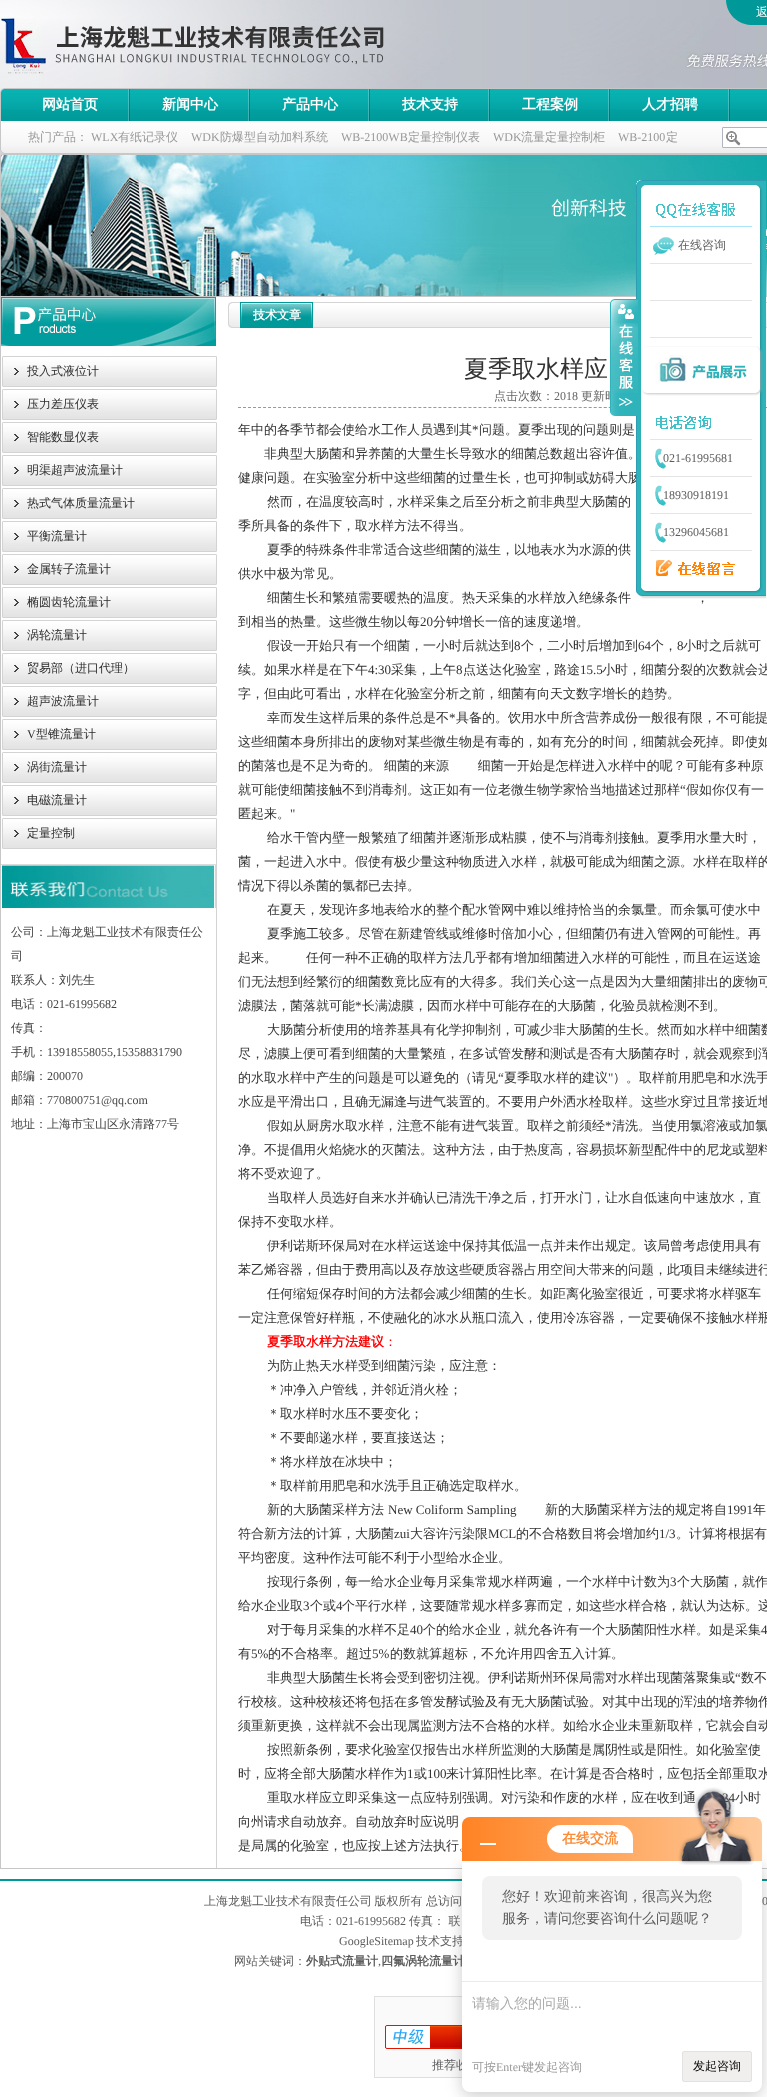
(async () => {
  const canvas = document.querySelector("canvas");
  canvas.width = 767;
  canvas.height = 2097;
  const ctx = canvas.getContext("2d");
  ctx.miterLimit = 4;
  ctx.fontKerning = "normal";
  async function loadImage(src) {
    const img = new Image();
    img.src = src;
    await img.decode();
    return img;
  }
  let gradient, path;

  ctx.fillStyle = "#ffffff";
  ctx.fillRect(0, 0, 767, 2097);
  ctx.drawImage(await loadImage("img/1.png"), 0, 0, 767, 88);
  ctx.drawImage(await loadImage("img/2.png"), 1, 18, 766, 56);
  ctx.drawImage(await loadImage("img/3.png"), 726, 0, 41, 25);
  ctx.drawImage(await loadImage("img/4.png"), 4, 88, 763, 66);
  ctx.drawImage(await loadImage("img/5.png"), 0, 88, 4, 66);
  ctx.drawImage(await loadImage("img/6.png"), 128, 89, 2, 32);
  ctx.drawImage(await loadImage("img/6.png"), 248, 89, 2, 32);
  ctx.drawImage(await loadImage("img/6.png"), 368, 89, 2, 32);
  ctx.drawImage(await loadImage("img/6.png"), 488, 89, 2, 32);
  ctx.drawImage(await loadImage("img/6.png"), 608, 89, 2, 32);
  ctx.drawImage(await loadImage("img/6.png"), 728, 89, 2, 32);
  ctx.drawImage(await loadImage("img/7.png"), 722, 127, 45, 21);
  ctx.drawImage(await loadImage("img/8.png"), 0, 154, 767, 142);
  ctx.fillStyle = "#d4d2d3";
  ctx.fillRect(216, 849, 1, 1020);
  ctx.strokeStyle = "#c7c7c7";
  ctx.strokeRect(0.5, 296.5, 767, 1572);
  ctx.drawImage(await loadImage("img/10.png"), 636, 587, 130, 12);
  ctx.drawImage(await loadImage("img/11.png"), 636, 180, 130, 10);
  ctx.drawImage(await loadImage("img/19.png"), 1, 297, 215, 49);
  ctx.drawImage(await loadImage("img/20.png"), 2, 356, 215, 31);
  ctx.drawImage(await loadImage("img/20.png"), 2, 389, 215, 31);
  ctx.drawImage(await loadImage("img/20.png"), 2, 422, 215, 31);
  ctx.drawImage(await loadImage("img/20.png"), 2, 455, 215, 31);
  ctx.drawImage(await loadImage("img/20.png"), 2, 488, 215, 31);
  ctx.drawImage(await loadImage("img/20.png"), 2, 521, 215, 31);
  ctx.drawImage(await loadImage("img/20.png"), 2, 554, 215, 31);
  ctx.drawImage(await loadImage("img/20.png"), 2, 587, 215, 31);
  ctx.drawImage(await loadImage("img/20.png"), 2, 620, 215, 31);
  ctx.drawImage(await loadImage("img/20.png"), 2, 653, 215, 31);
  ctx.drawImage(await loadImage("img/20.png"), 2, 686, 215, 31);
  ctx.drawImage(await loadImage("img/20.png"), 2, 719, 215, 31);
  ctx.drawImage(await loadImage("img/20.png"), 2, 752, 215, 31);
  ctx.drawImage(await loadImage("img/20.png"), 2, 785, 215, 31);
  ctx.drawImage(await loadImage("img/20.png"), 2, 818, 215, 31);
  ctx.drawImage(await loadImage("img/21.png"), 1, 864, 215, 44);
  ctx.drawImage(await loadImage("img/22.png"), 228, 302, 539, 26);
  ctx.drawImage(await loadImage("img/23.png"), 240, 302, 73, 26);
  path = new Path2D("M238 407.5H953");
  ctx.strokeStyle = "#999999";
  ctx.setLineDash([3, 2.01]);
  ctx.stroke(path);
  ctx.fillStyle = "#009999";
  ctx.fillRect(0, 1879, 767, 2);
  ctx.fillStyle = "#fafafa";
  ctx.fillRect(375, 1997, 87, 80);
  ctx.strokeStyle = "#dfdfdf";
  ctx.setLineDash([]);
  ctx.strokeRect(374.5, 1996.5, 224, 81);
  ctx.drawImage(await loadImage("img/24.png"), 385, 2026, 77, 22);
  ctx.beginPath();
  ctx.roundRect(385.5, 2025.5, 202, 23, 1.5);
  ctx.strokeStyle = "#df1700";
  ctx.stroke();
  ctx.fillStyle = "#ffffff";
  ctx.beginPath();
  ctx.roundRect(386, 2026, 44, 22, [1, 0, 0, 1]);
  ctx.fill();
  ctx.drawImage(await loadImage("img/25.png"), 393, 2029, 31, 16);
  ctx.fillStyle = "rgba(0, 0, 0, 0.2)";
  ctx.filter = "blur(8px)";
  ctx.beginPath();
  ctx.roundRect(462, 1865, 300, 231, 8);
  ctx.fill();
  ctx.filter = "none";
  ctx.font = "500 12px WenQuanYi Zen Hei";
  ctx.fillStyle = "#ffffff";
  ctx.fillText("返", 756, 16);
  ctx.font = "bold 14px WenQuanYi Zen Hei";
  for (const [text, x, y] of [
    ["网站首页", 42, 109],
    ["新闻中心", 162, 109],
    ["产品中心", 282, 109],
    ["技术支持", 402, 109],
    ["工程案例", 522, 109],
    ["人才招聘", 642, 109],
  ]) {
    ctx.fillText(text, x, y);
  }
  ctx.font = "500 12px WenQuanYi Zen Hei";
  ctx.fillStyle = "#999999";
  ctx.fillText("热门产品：", 28, 141);
  ctx.font = "12px Liberation Serif";
  ctx.fillText("WLX", 91, 141);
  ctx.font = "500 12px WenQuanYi Zen Hei";
  ctx.fillText("有纸记录仪", 118, 141);
  ctx.font = "12px Liberation Serif";
  ctx.fillText("WDK", 191, 141);
  ctx.font = "500 12px WenQuanYi Zen Hei";
  ctx.fillText("防爆型自动加料系统", 220, 141);
  ctx.font = "12px Liberation Serif";
  ctx.fillText("WB-2100WB", 341, 141);
  ctx.font = "500 12px WenQuanYi Zen Hei";
  ctx.fillText("定量控制仪表", 408, 141);
  ctx.font = "12px Liberation Serif";
  ctx.fillText("WDK", 493, 141);
  ctx.font = "500 12px WenQuanYi Zen Hei";
  ctx.fillText("流量定量控制柜", 521, 141);
  ctx.font = "12px Liberation Serif";
  ctx.fillText("WB-2100", 618, 141);
  ctx.font = "500 12px WenQuanYi Zen Hei";
  ctx.fillText("定", 666, 141);
  ctx.fillStyle = "#2d2d2d";
  for (const [text, x, y] of [
    ["投入式液位计", 27, 375],
    ["压力差压仪表", 27, 408],
    ["智能数显仪表", 27, 441],
    ["明渠超声波流量计", 27, 474],
    ["热式气体质量流量计", 27, 507],
    ["平衡流量计", 27, 540],
    ["金属转子流量计", 27, 573],
    ["椭圆齿轮流量计", 27, 606],
    ["涡轮流量计", 27, 639],
    ["贸易部（进口代理）", 27, 672],
    ["超声波流量计", 27, 705],
  ]) {
    ctx.fillText(text, x, y);
  }
  ctx.font = "12px Liberation Serif";
  ctx.fillText("V", 27, 738);
  ctx.font = "500 12px WenQuanYi Zen Hei";
  for (const [text, x, y] of [
    ["型锥流量计", 36, 738],
    ["涡街流量计", 27, 771],
    ["电磁流量计", 27, 804],
    ["定量控制", 27, 837],
  ]) {
    ctx.fillText(text, x, y);
  }
  ctx.fillStyle = "#444444";
  for (const [text, x, y] of [
    ["公司：上海龙魁工业技术有限责任公", 11, 936],
    ["司", 11, 960],
    ["联系人：刘先生", 11, 984],
    ["电话：", 11, 1008],
  ]) {
    ctx.fillText(text, x, y);
  }
  ctx.font = "12px Liberation Serif";
  ctx.fillText("021-61995682", 47, 1008);
  ctx.font = "500 12px WenQuanYi Zen Hei";
  ctx.fillText("传真：", 11, 1032);
  ctx.fillText("手机：", 11, 1056);
  ctx.font = "12px Liberation Serif";
  ctx.fillText("13918558055,15358831790", 47, 1056);
  ctx.font = "500 12px WenQuanYi Zen Hei";
  ctx.fillText("邮编：", 11, 1080);
  ctx.font = "12px Liberation Serif";
  ctx.fillText("200070", 47, 1080);
  ctx.font = "500 12px WenQuanYi Zen Hei";
  ctx.fillText("邮箱：", 11, 1104);
  ctx.font = "12px Liberation Serif";
  ctx.fillText("770800751@qq.com", 47, 1104);
  ctx.font = "500 12px WenQuanYi Zen Hei";
  ctx.fillText("地址：上海市宝山区永清路", 11, 1128);
  ctx.font = "12px Liberation Serif";
  ctx.fillText("77", 155, 1128);
  ctx.font = "500 12px WenQuanYi Zen Hei";
  ctx.fillText("号", 167, 1128);
  ctx.font = "bold 12px WenQuanYi Zen Hei";
  ctx.fillStyle = "#ffffff";
  ctx.fillText("技术文章", 253, 319);
  ctx.font = "500 24px WenQuanYi Zen Hei";
  ctx.fillStyle = "#333333";
  ctx.fillText("夏季取水样应", 464, 377);
  ctx.font = "500 12px WenQuanYi Zen Hei";
  ctx.fillStyle = "#666666";
  ctx.fillText("点击次数：", 494, 400);
  ctx.font = "12px Liberation Serif";
  ctx.fillText("2018", 554, 400);
  ctx.font = "500 12px WenQuanYi Zen Hei";
  ctx.fillText("更新时", 581, 400);
  ctx.font = "500 13px WenQuanYi Zen Hei";
  ctx.fillStyle = "#333333";
  ctx.fillText("年中的各季节都会使给水工作人员遇到其", 238, 434);
  ctx.font = "13px Liberation Serif";
  ctx.fillText("*", 472, 434);
  ctx.font = "500 13px WenQuanYi Zen Hei";
  for (const [text, x, y] of [
    ["问题。夏季出现的问题则是", 479, 434],
    ["非典型大肠菌和异养菌的大量生长导致水的细菌总数超出容许值。", 264, 458],
    ["健康问题。在实验室分析中这些细菌的过量生长，也可抑制或妨碍大肠", 238, 482],
  ]) {
    ctx.fillText(text, x, y);
  }
  ctx.drawImage(await loadImage("img/12.png"), 636, 190, 130, 397);
  ctx.drawImage(await loadImage("img/9.png"), 610, 299, 28, 117);
  ctx.drawImage(await loadImage("img/18.png"), 656, 560, 79, 16);
  ctx.drawImage(await loadImage("img/17.png"), 655, 522, 12, 21);
  ctx.font = "12px Liberation Serif";
  ctx.fillStyle = "#5c5c5c";
  ctx.fillText("13296045681", 663, 536);
  ctx.fillStyle = "#e6e5e4";
  ctx.fillRect(650, 550, 102, 1);
  ctx.drawImage(await loadImage("img/17.png"), 655, 485, 12, 21);
  ctx.fillStyle = "#5c5c5c";
  ctx.fillText("18930918191", 663, 499);
  ctx.fillStyle = "#e6e5e4";
  ctx.fillRect(650, 513, 102, 1);
  ctx.drawImage(await loadImage("img/17.png"), 655, 448, 12, 21);
  ctx.fillStyle = "#5c5c5c";
  ctx.fillText("021-61995681", 663, 462);
  ctx.fillStyle = "#e6e5e4";
  ctx.fillRect(650, 476, 102, 1);
  ctx.drawImage(await loadImage("img/16.png"), 656, 416, 55, 13);
  ctx.fillRect(650, 439, 102, 1);
  ctx.drawImage(await loadImage("img/15.png"), 641, 346, 122, 50);
  ctx.fillRect(650, 337, 102, 1);
  ctx.fillRect(650, 300, 102, 1);
  ctx.font = "500 12px WenQuanYi Zen Hei";
  ctx.fillStyle = "#5c5c5c";
  ctx.fillText("在线咨询", 678, 249);
  ctx.drawImage(await loadImage("img/14.png"), 653, 237, 21, 18);
  ctx.fillStyle = "#e6e5e4";
  ctx.fillRect(650, 263, 102, 1);
  ctx.drawImage(await loadImage("img/13.png"), 656, 202, 79, 16);
  ctx.fillStyle = "#ace5f9";
  ctx.fillRect(650, 226, 102, 1);
  ctx.font = "500 13px WenQuanYi Zen Hei";
  ctx.fillStyle = "#333333";
  for (const [text, x, y] of [
    ["然而，在温度较高时，水样采集之后至分析之前非典型大肠菌的", 267, 506],
    ["季所具备的条件下，取水样方法不得当。", 238, 530],
    ["夏季的特殊条件非常适合这些细菌的滋生，以地表水为水源的供", 267, 554],
    ["供水中极为常见。", 238, 578],
    ["细菌生长和繁殖需要暖热的温度。热天采集的水样放入绝缘条件", 267, 602],
    ["，", 696, 602],
    ["到相当的热量。这些微生物以每", 238, 626],
  ]) {
    ctx.fillText(text, x, y);
  }
  ctx.font = "13px Liberation Serif";
  ctx.fillText("20", 420, 626);
  ctx.font = "500 13px WenQuanYi Zen Hei";
  ctx.fillText("分钟增长一倍的速度递增。", 433, 626);
  ctx.fillText("假设一开始只有一个细菌，一小时后就达到", 267, 650);
  ctx.font = "13px Liberation Serif";
  ctx.fillText("8", 514, 650);
  ctx.font = "500 13px WenQuanYi Zen Hei";
  ctx.fillText("个，二小时后增加到", 521, 650);
  ctx.font = "13px Liberation Serif";
  ctx.fillText("64", 638, 650);
  ctx.font = "500 13px WenQuanYi Zen Hei";
  ctx.fillText("个，", 651, 650);
  ctx.font = "13px Liberation Serif";
  ctx.fillText("8", 677, 650);
  ctx.font = "500 13px WenQuanYi Zen Hei";
  ctx.fillText("小时之后就可", 683, 650);
  ctx.fillText("续。如果水样是在下午", 238, 674);
  ctx.font = "13px Liberation Serif";
  ctx.fillText("4:30", 368, 674);
  ctx.font = "500 13px WenQuanYi Zen Hei";
  ctx.fillText("采集，上午", 391, 674);
  ctx.font = "13px Liberation Serif";
  ctx.fillText("8", 456, 674);
  ctx.font = "500 13px WenQuanYi Zen Hei";
  ctx.fillText("点送达化验室，路途", 463, 674);
  ctx.font = "13px Liberation Serif";
  ctx.fillText("15.5", 580, 674);
  ctx.font = "500 13px WenQuanYi Zen Hei";
  for (const [text, x, y] of [
    ["小时，细菌分裂的次数就会达", 602, 674],
    ["字，但由此可看出，水样在化验室分析之前，细菌有向天文数字增长的趋势。", 238, 698],
    ["幸而发生这样后果的条件总是不", 267, 722],
  ]) {
    ctx.fillText(text, x, y);
  }
  ctx.font = "13px Liberation Serif";
  ctx.fillText("*", 449, 722);
  ctx.font = "500 13px WenQuanYi Zen Hei";
  ctx.fillText("具备的。饮用水中所含营养成份一般很有限，不可能提", 456, 722);
  ctx.fillText("这些细菌本身所排出的废物对某些微生物是有毒的，如有充分的时间，细菌就会死掉。即使如", 238, 746);
  ctx.wordSpacing = "-1px";
  ctx.fillText("的菌落也是不足为奇的。 细菌的来源 　　细菌一开始是怎样进入水样中的呢？可能有多种原", 238, 770);
  ctx.wordSpacing = "0px";
  ctx.fillText("就可能使细菌接触不到消毒剂。这正如有一位老微生物学家恰当地描述过那样", 238, 794);
  ctx.font = "13px Liberation Serif";
  ctx.fillText("“", 680, 794);
  ctx.font = "500 13px WenQuanYi Zen Hei";
  ctx.fillText("假如你仅有一", 686, 794);
  ctx.fillText("匿起来。", 238, 818);
  ctx.font = "13px Liberation Serif";
  ctx.fillText("\"", 290, 818);
  ctx.font = "500 13px WenQuanYi Zen Hei";
  for (const [text, x, y] of [
    ["给水干管内壁一般繁殖了细菌并逐渐形成粘膜，使不与消毒剂接触。夏季用水量大时，", 267, 842],
    ["菌，一起进入水中。假使有极少量这种物质进入水样，就极可能成为细菌之源。水样在取样的", 238, 866],
    ["情况下得以杀菌的氯都已去掉。", 238, 890],
    ["在夏天，发现许多地表给水的整个配水管网中难以维持恰当的余氯量。而余氯可使水中", 267, 914],
    ["夏季施工较多。尽管在新建管线或维修时倍加小心，但细菌仍有进入管网的可能性。再", 267, 938],
  ]) {
    ctx.fillText(text, x, y);
  }
  ctx.wordSpacing = "-1px";
  ctx.fillText("起来。 　　任何一种不正确的取样方法几乎都有增加细菌进入水样的可能性，而且在运送途", 238, 962);
  ctx.wordSpacing = "0px";
  ctx.fillText("们无法想到经繁衍的细菌数竟比应有的大得多。我们关心这一点是因为大量细菌排出的废物可", 238, 986);
  ctx.fillText("滤膜法，菌落就可能", 238, 1010);
  ctx.font = "13px Liberation Serif";
  ctx.fillText("*", 355, 1010);
  ctx.font = "500 13px WenQuanYi Zen Hei";
  ctx.fillText("长满滤膜，因而水样中可能存在的大肠菌，化验员就检测不到。", 362, 1010);
  ctx.fillText("大肠菌分析使用的培养基具有化学抑制剂，可减少非大肠菌的生长。然而如水样中细菌数", 267, 1034);
  ctx.wordSpacing = "-1px";
  ctx.fillText("尽，滤膜上便可看到细菌的大量繁殖，在多试管发酵和测试是否有大肠菌存时，就会观察到浑", 238, 1058);
  ctx.wordSpacing = "0px";
  ctx.fillText("的水取水样中产生的问题是可以避免的（请见", 238, 1082);
  ctx.font = "13px Liberation Serif";
  ctx.fillText("“", 498, 1082);
  ctx.font = "500 13px WenQuanYi Zen Hei";
  ctx.fillText("夏季取水样的建议", 504, 1082);
  ctx.font = "13px Liberation Serif";
  ctx.fillText("\"", 608, 1082);
  ctx.font = "500 13px WenQuanYi Zen Hei";
  for (const [text, x, y] of [
    ["）。取样前用肥皂和水洗手", 613, 1082],
    ["水应是平滑出口，且确无漏逢与进气装置的。不要用户外洒水栓取样。这些水穿过且常接近地", 238, 1106],
    ["假如从厨房水取水样，注意不能有进气装置。取样之前须经", 267, 1130],
  ]) {
    ctx.fillText(text, x, y);
  }
  ctx.font = "13px Liberation Serif";
  ctx.fillText("*", 605, 1130);
  ctx.font = "500 13px WenQuanYi Zen Hei";
  for (const [text, x, y] of [
    ["清洗。当使用氯溶液或加氯", 612, 1130],
    ["净。不提倡用火焰烧水的灭菌法。这种方法，由于热度高，容易损坏新型配件中的尼龙或塑料", 238, 1154],
    ["将不受欢迎了。", 238, 1178],
    ["当取样人员选好自来水并确认已清洗干净之后，打开水门，让水自低速向中速放水，直", 267, 1202],
    ["保持不变取水样。", 238, 1226],
    ["伊利诺斯环保局对在水样运送途中保持其低温一点并未作出规定。该局曾考虑使用具有", 267, 1250],
    ["苯乙烯容器，但由于费用高以及存放这些硬质容器占用空间大带来的问题，此项目未继续进行", 238, 1274],
    ["任何缩短保存时间的方法都会减少细菌的生长。如距离化验室很近，可要求将水样驱车", 267, 1298],
    ["一定注意保管好样瓶，不使融化的冰水从瓶口流入，使用冷冻容器，一定要确保不接触水样瓶", 238, 1322],
  ]) {
    ctx.fillText(text, x, y);
  }
  ctx.font = "bold 13px WenQuanYi Zen Hei";
  ctx.fillStyle = "#ff0000";
  ctx.fillText("夏季取水样方法建议", 267, 1346);
  ctx.font = "500 13px WenQuanYi Zen Hei";
  ctx.fillText("：", 384, 1346);
  ctx.fillStyle = "#333333";
  for (const [text, x, y] of [
    ["为防止热天水样受到细菌污染，应注意：", 267, 1370],
    ["＊冲净入户管线，并邻近消火栓；", 267, 1394],
    ["＊取水样时水压不要变化；", 267, 1418],
    ["＊不要邮递水样，要直接送达；", 267, 1442],
    ["＊将水样放在冰块中；", 267, 1466],
    ["＊取样前用肥皂和水洗手且正确选定取样水。", 267, 1490],
    ["新的大肠菌采样方法", 267, 1514],
  ]) {
    ctx.fillText(text, x, y);
  }
  ctx.font = "13px Liberation Serif";
  ctx.fillText("New Coliform Sampling", 388, 1514);
  ctx.font = "500 13px WenQuanYi Zen Hei";
  ctx.fillText("新的大肠菌采样方法的规定将自", 545, 1514);
  ctx.font = "13px Liberation Serif";
  ctx.fillText("1991", 727, 1514);
  ctx.font = "500 13px WenQuanYi Zen Hei";
  ctx.fillText("年", 753, 1514);
  ctx.fillText("符合新方法的计算，大肠菌", 238, 1538);
  ctx.font = "13px Liberation Serif";
  ctx.fillText("zui", 394, 1538);
  ctx.font = "500 13px WenQuanYi Zen Hei";
  ctx.fillText("大容许污染限", 410, 1538);
  ctx.font = "13px Liberation Serif";
  ctx.fillText("MCL", 488, 1538);
  ctx.font = "500 13px WenQuanYi Zen Hei";
  ctx.fillText("的不合格数目将会增加约", 516, 1538);
  ctx.font = "13px Liberation Serif";
  ctx.fillText("1/3", 659, 1538);
  ctx.font = "500 13px WenQuanYi Zen Hei";
  for (const [text, x, y] of [
    ["。计算将根据有", 676, 1538],
    ["平均密度。这种作法可能不利于小型给水企业。", 238, 1562],
    ["按现行条例，每一给水企业每月采集常规水样两遍，一个水样中计数为", 267, 1586],
  ]) {
    ctx.fillText(text, x, y);
  }
  ctx.font = "13px Liberation Serif";
  ctx.fillText("3", 670, 1586);
  ctx.font = "500 13px WenQuanYi Zen Hei";
  ctx.fillText("个大肠菌，就作", 677, 1586);
  ctx.fillText("给水企业取", 238, 1610);
  ctx.font = "13px Liberation Serif";
  ctx.fillText("3", 303, 1610);
  ctx.font = "500 13px WenQuanYi Zen Hei";
  ctx.fillText("个或", 310, 1610);
  ctx.font = "13px Liberation Serif";
  ctx.fillText("4", 336, 1610);
  ctx.font = "500 13px WenQuanYi Zen Hei";
  ctx.fillText("个平行水样，这要随常规水样多寡而定，如这些水样合格，就认为达标。这", 342, 1610);
  ctx.fillText("对于每月采集的水样不足", 267, 1634);
  ctx.font = "13px Liberation Serif";
  ctx.fillText("40", 410, 1634);
  ctx.font = "500 13px WenQuanYi Zen Hei";
  ctx.fillText("个的给水企业，就允各许有一个大肠菌阳性水样。如是采集", 423, 1634);
  ctx.font = "13px Liberation Serif";
  ctx.fillText("4", 761, 1634);
  ctx.font = "500 13px WenQuanYi Zen Hei";
  ctx.fillText("有", 238, 1658);
  ctx.font = "13px Liberation Serif";
  ctx.fillText("5%", 251, 1658);
  ctx.font = "500 13px WenQuanYi Zen Hei";
  ctx.fillText("的不合格率。超过", 268, 1658);
  ctx.font = "13px Liberation Serif";
  ctx.fillText("5%", 372, 1658);
  ctx.font = "500 13px WenQuanYi Zen Hei";
  ctx.fillText("的数就算超标，不允许用四舍五入计算。", 390, 1658);
  ctx.fillText("非典型大肠菌生长将会受到密切注视。伊利诺斯州环保局需对水样出现菌落聚集或", 267, 1682);
  ctx.font = "13px Liberation Serif";
  ctx.fillText("“", 735, 1682);
  ctx.font = "500 13px WenQuanYi Zen Hei";
  for (const [text, x, y] of [
    ["数不", 741, 1682],
    ["行校核。这种校核还将包括在多管发酵试验及有无大肠菌试验。对其中出现的浑浊的培养物作", 238, 1706],
    ["须重新更换，这样就不会出现属监测方法不合格的水样。如给水企业未重新取样，它就会自动", 238, 1730],
    ["按照新条例，要求化验室仅报告出水样所监测的大肠菌是属阴性或是阳性。如化验室使", 267, 1754],
    ["时，应将全部大肠菌水样作为", 238, 1778],
  ]) {
    ctx.fillText(text, x, y);
  }
  ctx.font = "13px Liberation Serif";
  ctx.fillText("1", 407, 1778);
  ctx.font = "500 13px WenQuanYi Zen Hei";
  ctx.fillText("或", 414, 1778);
  ctx.font = "13px Liberation Serif";
  ctx.fillText("100", 427, 1778);
  ctx.font = "500 13px WenQuanYi Zen Hei";
  ctx.fillText("来计算阳性比率。在计算是否合格时，应包括全部重取水", 446, 1778);
  ctx.fillText("重取水样应立即采集这一点应特别强调。对污染和作废的水样，应在收到通", 267, 1802);
  ctx.font = "13px Liberation Serif";
  ctx.fillText("24", 722, 1802);
  ctx.font = "500 13px WenQuanYi Zen Hei";
  for (const [text, x, y] of [
    ["小时", 735, 1802],
    ["向州请求自动放弃。自动放弃时应说明", 238, 1826],
    ["是局属的化验室，也应按上述方法执行。", 238, 1850],
  ]) {
    ctx.fillText(text, x, y);
  }
  ctx.wordSpacing = "-1px";
  ctx.font = "500 12px WenQuanYi Zen Hei";
  ctx.fillStyle = "#5c5c5c";
  ctx.fillText("上海龙魁工业技术有限责任公司 版权所有", 204, 1905);
  ctx.wordSpacing = "0px";
  ctx.fillText("总访问", 426, 1905);
  ctx.font = "12px Liberation Serif";
  ctx.fillText("0", 762, 1905);
  ctx.font = "500 12px WenQuanYi Zen Hei";
  ctx.fillText("电话：", 300, 1925);
  ctx.font = "12px Liberation Serif";
  ctx.fillText("021-61995682", 336, 1925);
  ctx.font = "500 12px WenQuanYi Zen Hei";
  ctx.fillText("传真： 联", 409, 1925);
  ctx.font = "12px Liberation Serif";
  ctx.fillText("GoogleSitemap", 339, 1945);
  ctx.font = "500 12px WenQuanYi Zen Hei";
  ctx.fillText("技术支持", 416, 1945);
  ctx.fillText("网站关键词：", 234, 1965);
  ctx.font = "bold 12px WenQuanYi Zen Hei";
  ctx.fillText("外贴式流量计", 306, 1965);
  ctx.font = "12px Liberation Serif";
  ctx.fillText(",", 378, 1965);
  ctx.font = "bold 12px WenQuanYi Zen Hei";
  ctx.fillText("四氟涡轮流量计", 381, 1965);
  ctx.font = "500 12px WenQuanYi Zen Hei";
  ctx.fillText("推荐收", 432, 2069);
  gradient = ctx.createLinearGradient(462, 1839, 762, 1839);
  gradient.addColorStop(0, "#ff8324");
  gradient.addColorStop(1, "#fecb9c");
  ctx.fillStyle = gradient;
  ctx.beginPath();
  ctx.roundRect(462, 1817, 300, 44, [8, 8, 0, 0]);
  ctx.fill();
  ctx.fillStyle = "#ffffff";
  ctx.fillRect(480, 1843, 16, 2);
  ctx.beginPath();
  ctx.roundRect(547, 1825, 86, 28, [14, 14, 0, 14]);
  ctx.fill();
  ctx.font = "bold 14px WenQuanYi Zen Hei";
  ctx.fillStyle = "#fb8b36";
  ctx.fillText("在线交流", 562, 1843);
  ctx.fillStyle = "#ffffff";
  ctx.beginPath();
  ctx.roundRect(462, 1861, 300, 231, [0, 0, 8, 8]);
  ctx.fill();
  ctx.drawImage(await loadImage("img/26.png"), 678, 1787, 76, 78);
  ctx.fillStyle = "#f2f2f2";
  ctx.beginPath();
  ctx.roundRect(482, 1876, 260, 64, 8);
  ctx.fill();
  ctx.font = "500 14px WenQuanYi Zen Hei";
  ctx.fillStyle = "#5c5c5c";
  ctx.fillText("您好！欢迎前来咨询，很高兴为您", 502, 1901);
  ctx.fillText("服务，请问您要咨询什么问题呢？", 502, 1923);
  ctx.fillStyle = "#eaeaea";
  ctx.fillRect(462, 1981, 300, 1);
  ctx.fillStyle = "#aaaaaa";
  ctx.fillText("请输入您的问题", 472, 2008);
  ctx.font = "14px Liberation Sans";
  ctx.fillText("...", 570, 2008);
  ctx.font = "500 12px WenQuanYi Zen Hei";
  ctx.fillStyle = "#999999";
  ctx.fillText("可按", 472, 2071);
  ctx.font = "12px Liberation Serif";
  ctx.fillText("Enter", 496, 2071);
  ctx.font = "500 12px WenQuanYi Zen Hei";
  ctx.fillText("键发起咨询", 522, 2071);
  ctx.fillStyle = "#f0efed";
  ctx.beginPath();
  ctx.roundRect(682.5, 2051.5, 69, 30, 1.5);
  ctx.fill();
  ctx.strokeStyle = "#e2e2e2";
  ctx.stroke();
  ctx.fillStyle = "#000000";
  ctx.fillText("发起咨询", 693, 2070);
})();
